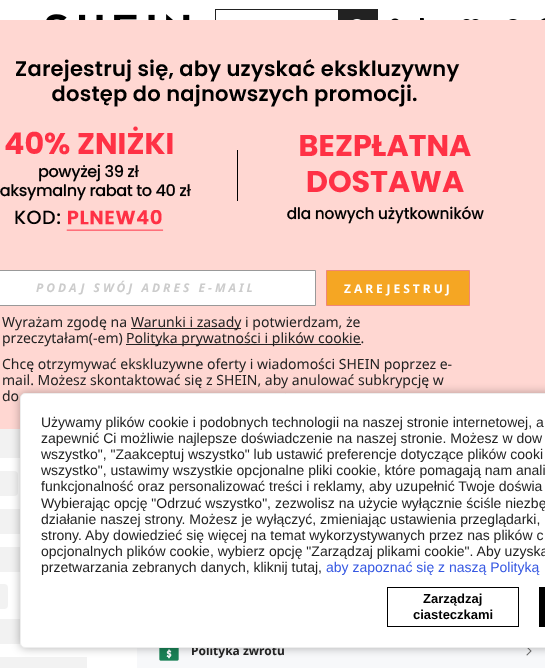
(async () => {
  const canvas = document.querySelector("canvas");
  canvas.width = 545;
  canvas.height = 668;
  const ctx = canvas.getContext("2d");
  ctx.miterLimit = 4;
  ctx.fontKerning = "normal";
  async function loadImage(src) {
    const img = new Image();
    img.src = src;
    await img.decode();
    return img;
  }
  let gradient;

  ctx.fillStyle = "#ffffff";
  ctx.fillRect(0, 0, 545, 668);
  ctx.fillStyle = "#ffd7d2";
  ctx.fillRect(0, 20, 545, 409);
  ctx.drawImage(await loadImage("img/1.png"), 0, 59, 484, 172);
  ctx.fillStyle = "#ffffff";
  ctx.beginPath();
  ctx.rect(-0.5, 270.5, 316, 35);
  ctx.fill();
  ctx.strokeStyle = "#999999";
  ctx.stroke();
  ctx.fillStyle = "#f5a623";
  ctx.beginPath();
  ctx.rect(326.5, 270.5, 143, 35);
  ctx.fill();
  ctx.strokeStyle = "#f08679";
  ctx.stroke();
  ctx.fillStyle = "#222222";
  ctx.fillRect(131, 328, 110, 1);
  ctx.fillRect(126, 344, 235, 1);
  gradient = ctx.createLinearGradient(-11, 383, 381, 383);
  gradient.addColorStop(0.25, "#f2f2f2");
  gradient.addColorStop(0.38, "#f9f9f9");
  gradient.addColorStop(0.63, "#f2f2f2");
  ctx.fillStyle = gradient;
  ctx.fillRect(0, 429, 20, 29);
  gradient = ctx.createLinearGradient(-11, 484, 105, 484);
  gradient.addColorStop(0.25, "#f2f2f2");
  gradient.addColorStop(0.38, "#f9f9f9");
  gradient.addColorStop(0.63, "#f2f2f2");
  ctx.fillStyle = gradient;
  ctx.beginPath();
  ctx.roundRect(-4, 471, 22, 25, 4);
  ctx.fill();
  gradient = ctx.createLinearGradient(-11, 522, 381, 522);
  gradient.addColorStop(0.25, "#f2f2f2");
  gradient.addColorStop(0.38, "#f9f9f9");
  gradient.addColorStop(0.63, "#f2f2f2");
  ctx.fillStyle = gradient;
  ctx.fillRect(0, 509, 20, 25);
  gradient = ctx.createLinearGradient(-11, 560, 381, 560);
  gradient.addColorStop(0.25, "#f2f2f2");
  gradient.addColorStop(0.38, "#f9f9f9");
  gradient.addColorStop(0.63, "#f2f2f2");
  ctx.fillStyle = gradient;
  ctx.fillRect(0, 547, 20, 25);
  gradient = ctx.createLinearGradient(-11, 597, 65, 597);
  gradient.addColorStop(0.25, "#f2f2f2");
  gradient.addColorStop(0.38, "#f9f9f9");
  gradient.addColorStop(0.63, "#f2f2f2");
  ctx.fillStyle = gradient;
  ctx.beginPath();
  ctx.roundRect(-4, 584, 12, 25, 4);
  ctx.fill();
  gradient = ctx.createLinearGradient(-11, 632, 261, 632);
  gradient.addColorStop(0.25, "#f2f2f2");
  gradient.addColorStop(0.38, "#f9f9f9");
  gradient.addColorStop(0.63, "#f2f2f2");
  ctx.fillStyle = gradient;
  ctx.fillRect(0, 619, 21, 25);
  ctx.fillStyle = "#f2f2f2";
  ctx.fillRect(0, 657, 87, 11);
  ctx.fillStyle = "#f7f8fa";
  ctx.fillRect(137, 648, 408, 20);
  ctx.drawImage(await loadImage("img/9.png"), 159, 648, 20, 13);
  ctx.drawImage(await loadImage("img/10.png"), 526, 648, 6, 8);
  ctx.fillStyle = "rgba(0, 0, 0, 0.3)";
  ctx.filter = "blur(5px)";
  ctx.beginPath();
  ctx.roundRect(20, 393, 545, 255, 5);
  ctx.fill();
  ctx.filter = "none";
  ctx.drawImage(await loadImage("img/2.png"), 46, 14, 144, 6);
  for (const [x, y, w, h, color] of [
    [215, 9, 123, 1, "#222222"],
    [215, 9, 1, 11, "#222222"],
    [338, 9, 40, 11, "#222222"],
  ]) {
    ctx.fillStyle = color;
    ctx.fillRect(x, y, w, h);
  }
  ctx.drawImage(await loadImage("img/3.png"), 353, 19, 8, 1);
  ctx.drawImage(await loadImage("img/4.png"), 391, 18, 8, 2);
  ctx.drawImage(await loadImage("img/5.png"), 420, 18, 4, 2);
  ctx.drawImage(await loadImage("img/6.png"), 463, 19, 16, 1);
  ctx.drawImage(await loadImage("img/7.png"), 509, 19, 8, 1);
  ctx.drawImage(await loadImage("img/8.png"), 541, 18, 4, 2);
  ctx.letterSpacing = "3px";
  ctx.font = "italic bold 12px Noto Sans";
  ctx.fillStyle = "#cccccc";
  ctx.fillText("PODAJ SWÓJ ADRES E-MAIL", 36, 292);
  ctx.font = "bold 12px Noto Sans";
  ctx.fillStyle = "#ffffff";
  ctx.fillText("ZAREJESTRUJ", 344, 293);
  ctx.letterSpacing = "0px";
  ctx.font = "14px Noto Sans";
  ctx.fillStyle = "#222222";
  for (const [text, x, y] of [
    ["Wyrażam zgodę na", 2, 327],
    ["Warunki i zasady i potwierdzam, że", 131, 327],
    ["przeczytałam(-em)", 2, 343],
    ["Polityka prywatności i plików cookie.", 126, 343],
    ["Chcę otrzymywać ekskluzywne oferty i wiadomości SHEIN poprzez e-", 2, 369],
    ["mail. Możesz skontaktować się z SHEIN, aby anulować subkrypcję w", 2, 385],
    ["do", 2, 401],
  ]) {
    ctx.fillText(text, x, y);
  }
  ctx.font = "bold 12px Noto Sans";
  ctx.fillText("Polityka zwrotu", 191, 655);
  ctx.fillStyle = "#ffffff";
  ctx.beginPath();
  ctx.roundRect(20.5, 393.5, 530, 254, 4.5);
  ctx.fill();
  ctx.strokeStyle = "#eeeeee";
  ctx.stroke();
  ctx.fillStyle = "#000000";
  ctx.fillRect(539, 587, 6, 40);
  ctx.strokeStyle = "#000000";
  ctx.strokeRect(387.5, 587.5, 131, 39);
  ctx.font = "bold 13px Liberation Sans";
  ctx.fillText("ciasteczkami", 413, 619);
  ctx.fillText("Zarządzaj", 423, 603);
  ctx.font = "14px Liberation Sans";
  ctx.fillStyle = "#3658e2";
  ctx.fillText("aby zapoznać się z naszą Polityką", 326, 572);
  ctx.fillStyle = "#222222";
  for (const [text, x, y] of [
    ["przetwarzania zebranych danych, kliknij tutaj,", 41, 572],
    ["opcjonalnych plików cookie, wybierz opcję \"Zarządzaj plikami cookie\". Aby uzyska", 41, 556],
    ["strony. Aby dowiedzieć się więcej na temat wykorzystywanych przez nas plików c", 41, 540],
    ["działanie naszej strony. Możesz je wyłączyć, zmieniając ustawienia przeglądarki,", 41, 524],
    ["Wybierając opcję \"Odrzuć wszystko\", zezwolisz na użycie wyłącznie ściśle niezbę", 41, 508],
    ["funkcjonalność oraz personalizować treści i reklamy, aby uzupełnić Twoje doświa", 41, 491],
    ["wszystko\", ustawimy wszystkie opcjonalne pliki cookie, które pomagają nam anali", 41, 475],
    ["wszystko\", \"Zaakceptuj wszystko\" lub ustawić preferencje dotyczące plików cooki", 41, 459],
    ["zapewnić Ci możliwie najlepsze doświadczenie na naszej stronie. Możesz w dow", 41, 443],
    ["Używamy plików cookie i podobnych technologii na naszej stronie internetowej, a", 41, 427],
  ]) {
    ctx.fillText(text, x, y);
  }
})();
